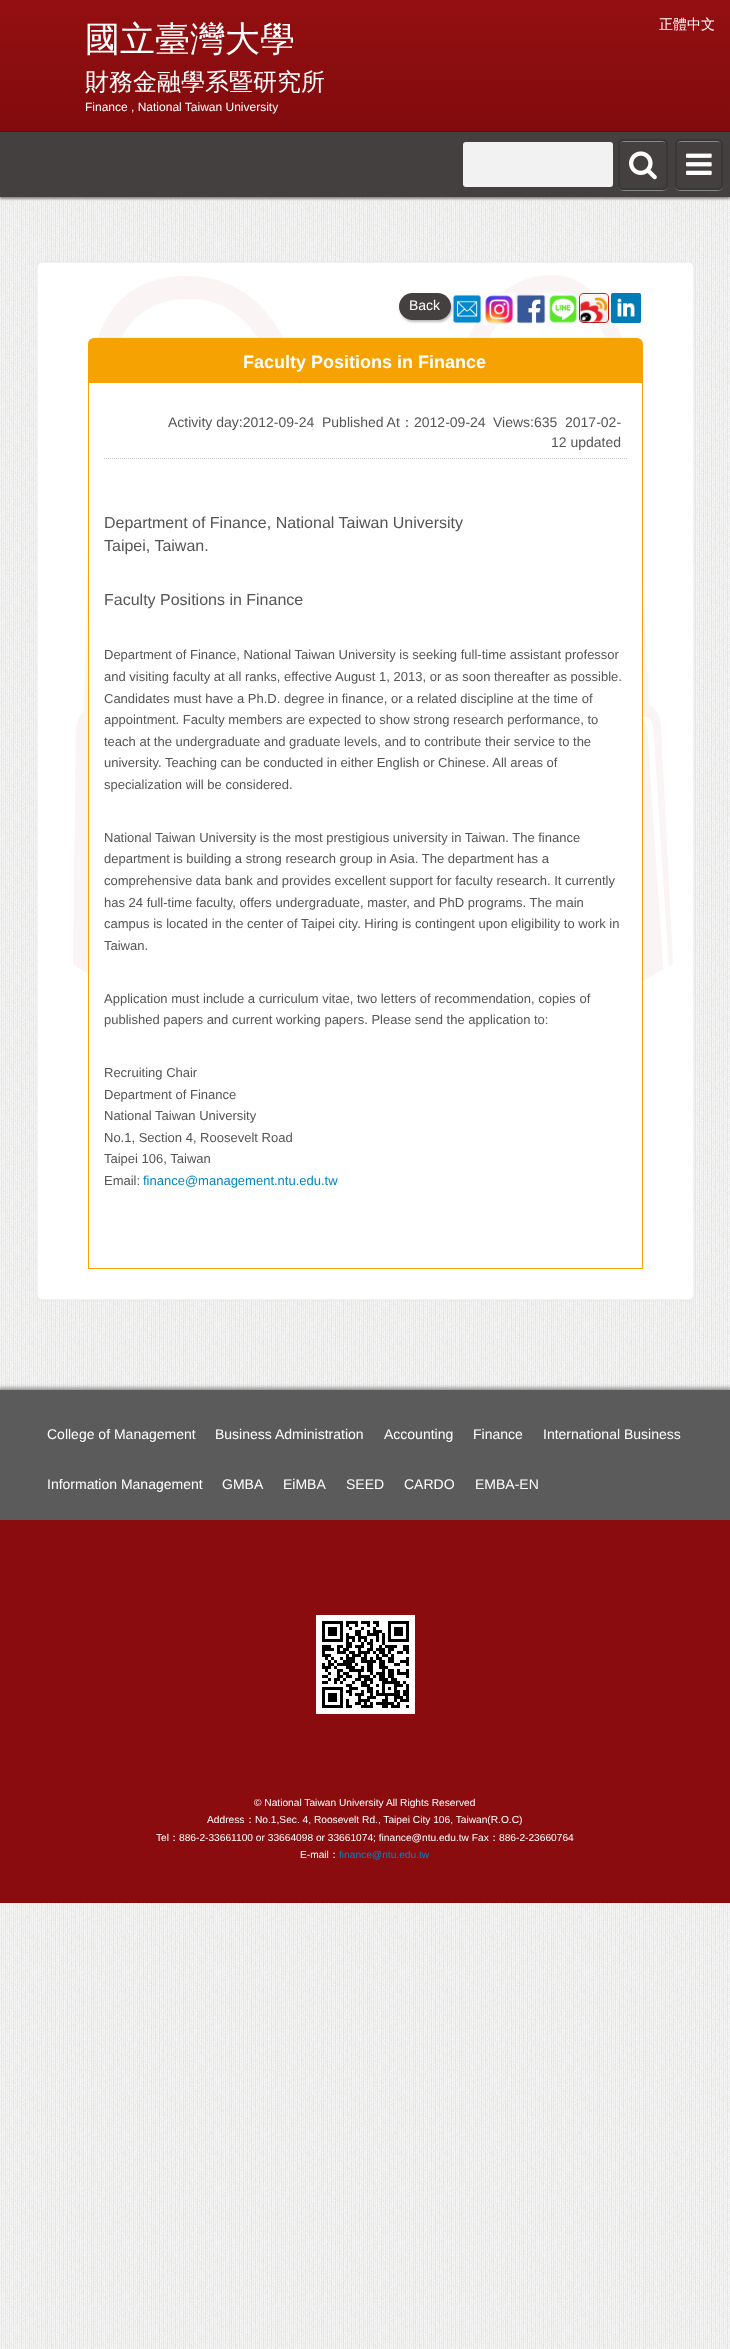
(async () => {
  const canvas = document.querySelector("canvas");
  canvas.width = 730;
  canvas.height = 2349;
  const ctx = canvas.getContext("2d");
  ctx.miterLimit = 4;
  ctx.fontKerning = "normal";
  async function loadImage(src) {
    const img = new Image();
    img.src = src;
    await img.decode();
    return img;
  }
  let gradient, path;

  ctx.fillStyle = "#ffffff";
  ctx.fillRect(0, 0, 730, 2349);
  ctx.drawImage(await loadImage("img/1.png"), 0, 197, 730, 2152);
  gradient = ctx.createLinearGradient(365, 0, 365, 131);
  gradient.addColorStop(0, "#940f11");
  gradient.addColorStop(1, "#820b0d");
  ctx.fillStyle = gradient;
  ctx.fillRect(0, 0, 730, 131);
  ctx.fillStyle = "#888888";
  ctx.filter = "blur(1px)";
  ctx.beginPath();
  ctx.rect(0, 133, 730, 66);
  ctx.fill();
  ctx.filter = "none";
  ctx.fillStyle = "#444040";
  ctx.fillRect(0, 132, 730, 65);
  ctx.fillStyle = "#6a0709";
  ctx.fillRect(0, 131, 730, 1);
  ctx.fillStyle = "#f2f2f2";
  ctx.beginPath();
  ctx.roundRect(463, 142, 150, 45, 3);
  ctx.fill();
  ctx.fillStyle = "#878787";
  path = new Path2D("M618 185C618 192 624 191 630 191H656C662 191 668 192 668 185C668 188 666 190 663 190H623C620 190 618 188 618 185Z");
  ctx.fill(path);
  ctx.fillStyle = "#444040";
  ctx.beginPath();
  ctx.roundRect(618, 139, 50, 51, 5);
  ctx.fill();
  ctx.fillStyle = "#878787";
  path = new Path2D("M623 142H663C665 142 666 143 666 145C666 140 661 141 656 141H630C625 141 620 140 620 145C620 143 621 142 623 142Z");
  ctx.fill(path);
  ctx.beginPath();
  ctx.roundRect(619, 140, 48, 49, 4);
  ctx.strokeStyle = "#383838";
  ctx.lineWidth = 2;
  ctx.stroke();
  ctx.drawImage(await loadImage("img/2.png"), 629, 151, 28, 29);
  path = new Path2D("M675 185C675 192 681 191 686 191H712C717 191 723 192 723 185C723 188 721 190 718 190H680C677 190 675 188 675 185ZM680 142H718C720 142 721 143 721 145C721 140 716 141 712 141H686C682 141 677 140 677 145C677 143 678 142 680 142Z");
  ctx.fill(path);
  ctx.beginPath();
  ctx.roundRect(676, 140, 46, 49, 4);
  ctx.stroke();
  ctx.drawImage(await loadImage("img/3.png"), 686, 153, 26, 22);
  ctx.fillStyle = "#e8e8e8";
  ctx.filter = "blur(1px)";
  ctx.beginPath();
  ctx.roundRect(37, 262, 657, 1038, 5);
  ctx.fill();
  ctx.filter = "none";
  ctx.fillStyle = "#ffffff";
  ctx.beginPath();
  ctx.roundRect(37.5, 262.5, 656, 1037, 4.5);
  ctx.fill();
  ctx.strokeStyle = "#f2f2f2";
  ctx.lineWidth = 1;
  ctx.stroke();
  ctx.drawImage(await loadImage("img/4.png"), 73, 275, 600, 706);
  ctx.fillStyle = "#bbbbbb";
  ctx.filter = "blur(1px)";
  ctx.beginPath();
  ctx.roundRect(400, 295, 52, 27, 13.5);
  ctx.fill();
  ctx.filter = "none";
  ctx.fillStyle = "#444040";
  ctx.beginPath();
  ctx.roundRect(399, 293, 52, 27, 13.5);
  ctx.fill();
  ctx.drawImage(await loadImage("img/5.png"), 452, 294, 30, 30);
  ctx.drawImage(await loadImage("img/6.png"), 483, 293, 32, 32);
  ctx.drawImage(await loadImage("img/7.png"), 516, 294, 30, 30);
  ctx.drawImage(await loadImage("img/8.png"), 549, 295, 28, 28);
  ctx.drawImage(await loadImage("img/9.png"), 579, 293, 30, 30);
  ctx.drawImage(await loadImage("img/10.png"), 611, 293, 30, 30);
  ctx.fillStyle = "#f6a202";
  ctx.beginPath();
  ctx.roundRect(88, 338, 555, 44, [6, 6, 0, 0]);
  ctx.fill();
  ctx.fillStyle = "#ffffff";
  ctx.fillRect(89, 383, 553, 598);
  ctx.strokeStyle = "#f6a202";
  ctx.strokeRect(88.5, 382.5, 554, 886);
  path = new Path2D("M104 458.5H627");
  ctx.strokeStyle = "#cccccc";
  ctx.setLineDash([1, 1]);
  ctx.stroke(path);
  ctx.fillStyle = "#888888";
  ctx.filter = "blur(2px)";
  ctx.beginPath();
  ctx.rect(-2, 1388, 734, 134);
  ctx.fill();
  ctx.filter = "none";
  ctx.fillStyle = "#5b5b5b";
  ctx.fillRect(0, 1390, 730, 130);
  ctx.fillStyle = "#8a0c0e";
  ctx.fillRect(0, 1520, 730, 383);
  ctx.drawImage(await loadImage("img/11.png"), 316, 1615, 99, 99);
  ctx.font = "500 35px WenQuanYi Zen Hei";
  ctx.fillStyle = "#ffffff";
  ctx.fillText("國立臺灣大學", 85, 51);
  ctx.font = "500 24px WenQuanYi Zen Hei";
  ctx.fillText("財務金融學系暨研究所", 85, 90);
  ctx.font = "12px Liberation Sans";
  ctx.fillText("Finance , National Taiwan University", 85, 111);
  ctx.font = "500 14px WenQuanYi Zen Hei";
  ctx.fillText("正體中文", 659, 29);
  ctx.font = "14px Liberation Sans";
  ctx.fillText("Back", 409, 310);
  ctx.font = "bold 18px Liberation Sans";
  ctx.fillText("Faculty Positions in Finance", 243, 368);
  ctx.font = "14px Liberation Sans";
  ctx.fillStyle = "#555555";
  ctx.fillText("Activity day:2012-09-24", 168, 427);
  ctx.fillText("Published At", 322, 427);
  ctx.font = "500 14px WenQuanYi Zen Hei";
  ctx.fillText("：", 400, 427);
  ctx.font = "14px Liberation Sans";
  for (const [text, x, y] of [
    ["2012-09-24", 414, 427],
    ["Views:635", 493, 427],
    ["2017-02-", 565, 427],
    ["12 updated", 551, 447],
  ]) {
    ctx.fillText(text, x, y);
  }
  ctx.font = "16px Liberation Sans";
  for (const [text, x, y] of [
    ["Department of Finance, National Taiwan University", 104, 528],
    ["Taipei, Taiwan.", 104, 551],
    ["Faculty Positions in Finance", 104, 605],
  ]) {
    ctx.fillText(text, x, y);
  }
  ctx.font = "13px Liberation Sans";
  for (const [text, x, y] of [
    ["Department of Finance, National Taiwan University is seeking full-time assistant professor", 104, 659],
    ["and visiting faculty at all ranks, effective August 1, 2013, or as soon thereafter as possible.", 104, 681],
    ["Candidates must have a Ph.D. degree in finance, or a related discipline at the time of", 104, 703],
    ["appointment. Faculty members are expected to show strong research performance, to", 104, 724],
    ["teach at the undergraduate and graduate levels, and to contribute their service to the", 104, 746],
    ["university. Teaching can be conducted in either English or Chinese. All areas of", 104, 767],
    ["specialization will be considered.", 104, 789],
    ["National Taiwan University is the most prestigious university in Taiwan. The finance", 104, 842],
    ["department is building a strong research group in Asia. The department has a", 104, 863],
    ["comprehensive data bank and provides excellent support for faculty research. It currently", 104, 885],
    ["has 24 full-time faculty, offers undergraduate, master, and PhD programs. The main", 104, 907],
    ["campus is located in the center of Taipei city. Hiring is contingent upon eligibility to work in", 104, 928],
    ["Taiwan.", 104, 950],
    ["Application must include a curriculum vitae, two letters of recommendation, copies of", 104, 1003],
    ["published papers and current working papers. Please send the application to:", 104, 1024],
    ["Recruiting Chair", 104, 1077],
    ["Department of Finance", 104, 1099],
    ["National Taiwan University", 104, 1120],
    ["No.1, Section 4, Roosevelt Road", 104, 1142],
    ["Taipei 106, Taiwan", 104, 1163],
    ["Email:", 104, 1185],
  ]) {
    ctx.fillText(text, x, y);
  }
  ctx.fillStyle = "#0086c4";
  ctx.fillText("finance@management.ntu.edu.tw", 143, 1185);
  ctx.font = "14px Liberation Sans";
  ctx.fillStyle = "#ffffff";
  for (const [text, x, y] of [
    ["College of Management", 47, 1439],
    ["Business Administration", 215, 1439],
    ["Accounting", 384, 1439],
    ["Finance", 473, 1439],
    ["International Business", 543, 1439],
    ["Information Management", 47, 1489],
    ["GMBA", 222, 1489],
    ["EiMBA", 283, 1489],
    ["SEED", 346, 1489],
    ["CARDO", 404, 1489],
    ["EMBA-EN", 475, 1489],
  ]) {
    ctx.fillText(text, x, y);
  }
  ctx.font = "10.2px Liberation Sans";
  ctx.fillText("© National Taiwan University All Rights Reserved", 254, 1806);
  ctx.fillText("Address", 207, 1823);
  ctx.font = "500 10.2px WenQuanYi Zen Hei";
  ctx.fillText("：", 245, 1823);
  ctx.font = "10.2px Liberation Sans";
  ctx.fillText("No.1,Sec. 4, Roosevelt Rd., Taipei City 106, Taiwan(R.O.C)", 255, 1823);
  ctx.fillText("Tel", 156, 1841);
  ctx.font = "500 10.2px WenQuanYi Zen Hei";
  ctx.fillText("：", 169, 1841);
  ctx.font = "10.2px Liberation Sans";
  ctx.fillText("886-2-33661100 or 33664098 or 33661074; finance@ntu.edu.tw Fax", 179, 1841);
  ctx.font = "500 10.2px WenQuanYi Zen Hei";
  ctx.fillText("：", 489, 1841);
  ctx.font = "10.2px Liberation Sans";
  ctx.fillText("886-2-23660764", 499, 1841);
  ctx.fillText("E-mail", 300, 1858);
  ctx.font = "500 10.2px WenQuanYi Zen Hei";
  ctx.fillText("：", 329, 1858);
  ctx.font = "10.2px Liberation Sans";
  ctx.fillStyle = "#0086c4";
  ctx.fillText("finance@ntu.edu.tw", 339, 1858);
})();
